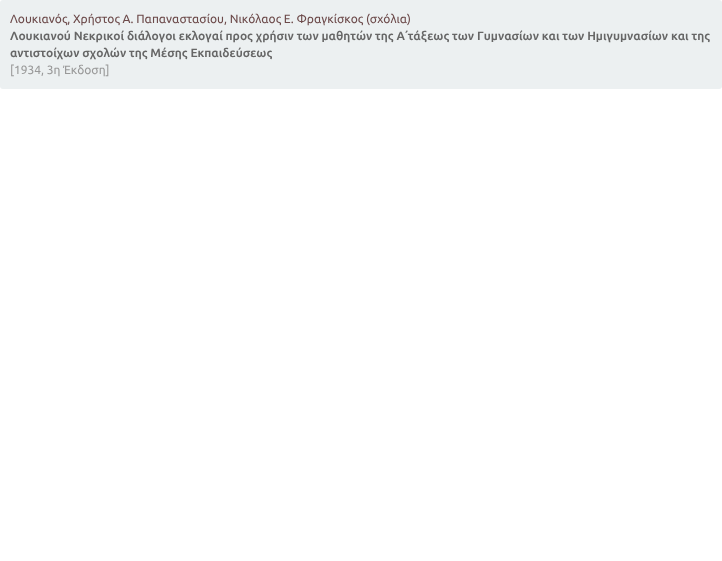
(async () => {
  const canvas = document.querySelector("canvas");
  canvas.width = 722;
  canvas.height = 561;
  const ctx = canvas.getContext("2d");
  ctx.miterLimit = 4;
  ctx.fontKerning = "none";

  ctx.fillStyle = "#ffffff";
  ctx.fillRect(0, 0, 722, 561);
  ctx.fillStyle = "#ecf0f1";
  ctx.beginPath();
  ctx.roundRect(0, 0, 722, 89, 3);
  ctx.fill();
  ctx.font = "12px Ubuntu";
  ctx.fillStyle = "#6c4a4a";
  ctx.fillText("Λουκιανός, Χρήστος Α. Παπαναστασίου, Νικόλαος Ε. Φραγκίσκος (σχόλια)", 10, 23);
  ctx.font = "bold 12px Ubuntu";
  ctx.fillStyle = "#666666";
  ctx.fillText("Λουκιανού Νεκρικοί διάλογοι εκλογαί προς χρήσιν των μαθητών της Α΄ τάξεως των Γυμνασίων και των Ημιγυμνασίων και της", 10, 40);
  ctx.fillText("αντιστοίχων σχολών της Μέσης Εκπαιδεύσεως", 10, 57);
  ctx.font = "12px Ubuntu";
  ctx.fillStyle = "#999999";
  ctx.fillText("[1934, 3η Έκδοση]", 10, 74);
})();
